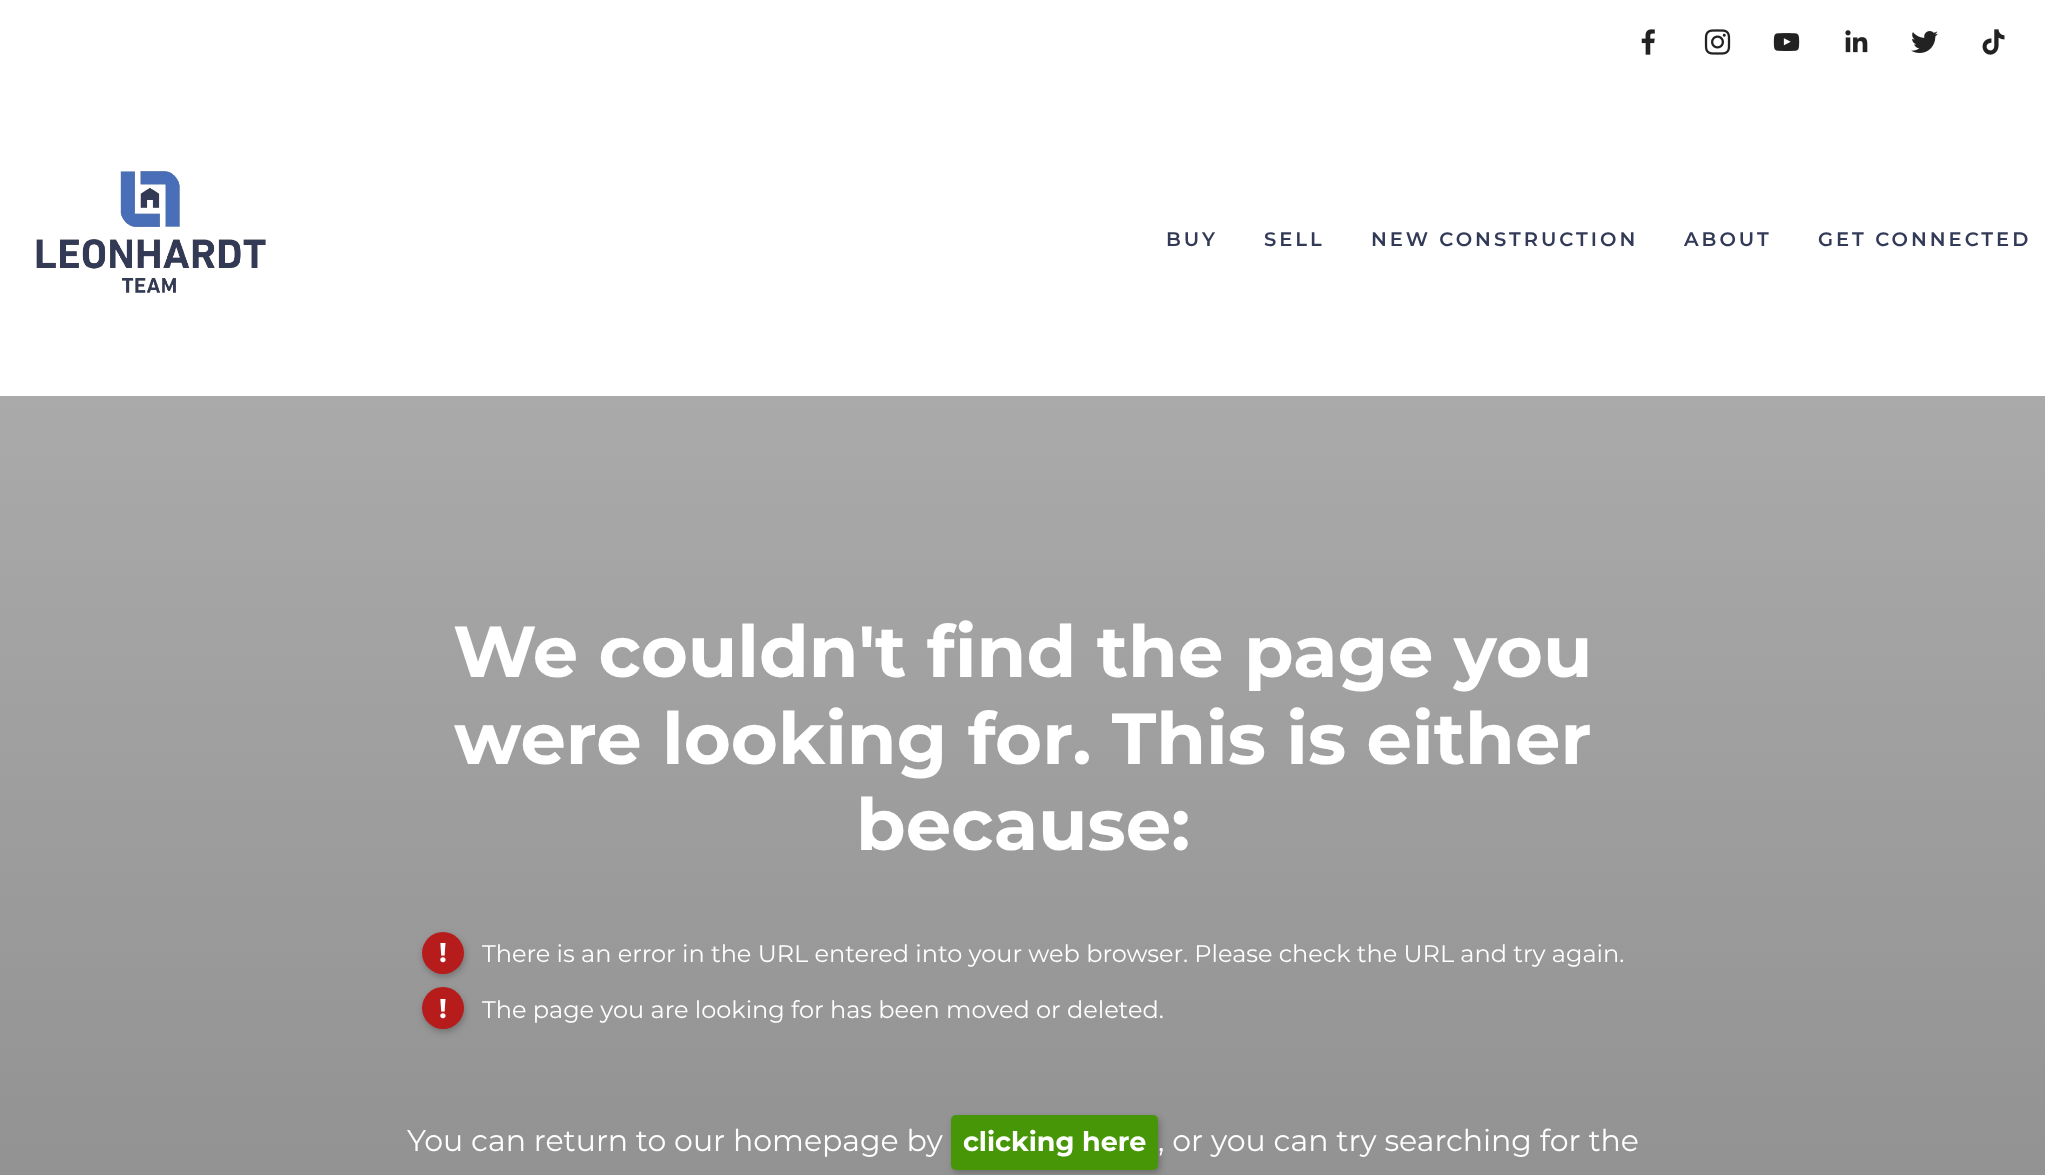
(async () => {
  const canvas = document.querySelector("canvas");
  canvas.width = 2045;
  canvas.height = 1175;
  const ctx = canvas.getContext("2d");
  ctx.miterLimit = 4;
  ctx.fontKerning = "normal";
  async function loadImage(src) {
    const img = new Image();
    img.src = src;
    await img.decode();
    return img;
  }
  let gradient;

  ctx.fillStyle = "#ffffff";
  ctx.fillRect(0, 0, 2045, 1175);
  ctx.drawImage(await loadImage("img/1.png"), 1641, 29, 14, 26);
  ctx.drawImage(await loadImage("img/2.png"), 1704, 29, 27, 26);
  ctx.drawImage(await loadImage("img/3.png"), 1773, 33, 27, 18);
  ctx.drawImage(await loadImage("img/4.png"), 1845, 30, 23, 23);
  ctx.drawImage(await loadImage("img/5.png"), 1911, 31, 27, 22);
  ctx.drawImage(await loadImage("img/6.png"), 1982, 29, 23, 26);
  ctx.drawImage(await loadImage("img/7.png"), 36, 171, 230, 122);
  gradient = ctx.createLinearGradient(1023, 396, 1023, 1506);
  gradient.addColorStop(0, "#aaaaaa");
  gradient.addColorStop(1, "#888888");
  ctx.fillStyle = gradient;
  ctx.fillRect(0, 396, 2045, 779);
  ctx.fillStyle = "rgba(0, 0, 0, 0.24)";
  ctx.filter = "blur(3px)";
  ctx.beginPath();
  ctx.roundRect(423, 935, 42, 42, 21);
  ctx.fill();
  ctx.filter = "none";
  ctx.fillStyle = "#b71c1c";
  ctx.beginPath();
  ctx.arc(443, 953, 21, 0, Math.PI * 2);
  ctx.fill();
  ctx.fillStyle = "rgba(0, 0, 0, 0.24)";
  ctx.filter = "blur(3px)";
  ctx.beginPath();
  ctx.roundRect(423, 990, 42, 42, 21);
  ctx.fill();
  ctx.filter = "none";
  ctx.fillStyle = "#b71c1c";
  ctx.beginPath();
  ctx.arc(443, 1008, 21, 0, Math.PI * 2);
  ctx.fill();
  ctx.fillStyle = "rgba(0, 0, 0, 0.24)";
  ctx.filter = "blur(3px)";
  ctx.beginPath();
  ctx.roundRect(953, 1118, 207, 55, 5);
  ctx.fill();
  ctx.filter = "none";
  ctx.fillStyle = "#479607";
  ctx.beginPath();
  ctx.roundRect(951, 1115, 207, 55, 5);
  ctx.fill();
  ctx.letterSpacing = "3px";
  ctx.font = "600 19.5px Montserrat";
  ctx.fillStyle = "#333a57";
  for (const [text, x, y] of [
    ["BUY", 1166, 246],
    ["SELL", 1264, 246],
    ["NEW CONSTRUCTION", 1371, 246],
    ["ABOUT", 1684, 246],
    ["GET CONNECTED", 1818, 246],
  ]) {
    ctx.fillText(text, x, y);
  }
  ctx.letterSpacing = "0px";
  ctx.font = "bold 72px Montserrat";
  ctx.fillStyle = "#ffffff";
  for (const [text, x, y] of [
    ["We couldn't find the page you", 453, 677],
    ["were looking for. This is either", 454, 764],
    ["because:", 856, 850],
  ]) {
    ctx.fillText(text, x, y);
  }
  ctx.font = "bold 27px Montserrat";
  ctx.fillText("!", 439, 962);
  ctx.font = "24px Montserrat";
  ctx.fillText("There is an error in the URL entered into your web browser. Please check the URL and try again.", 482, 962);
  ctx.font = "bold 27px Montserrat";
  ctx.fillText("!", 439, 1018);
  ctx.font = "24px Montserrat";
  ctx.fillText("The page you are looking for has been moved or deleted.", 482, 1018);
  ctx.font = "30px Montserrat";
  ctx.fillText("You can return to our homepage by", 407, 1151);
  ctx.font = "bold 27px Montserrat";
  ctx.fillText("clicking here", 963, 1151);
  ctx.font = "30px Montserrat";
  ctx.fillText(", or you can try searching for the", 1158, 1151);
})();
